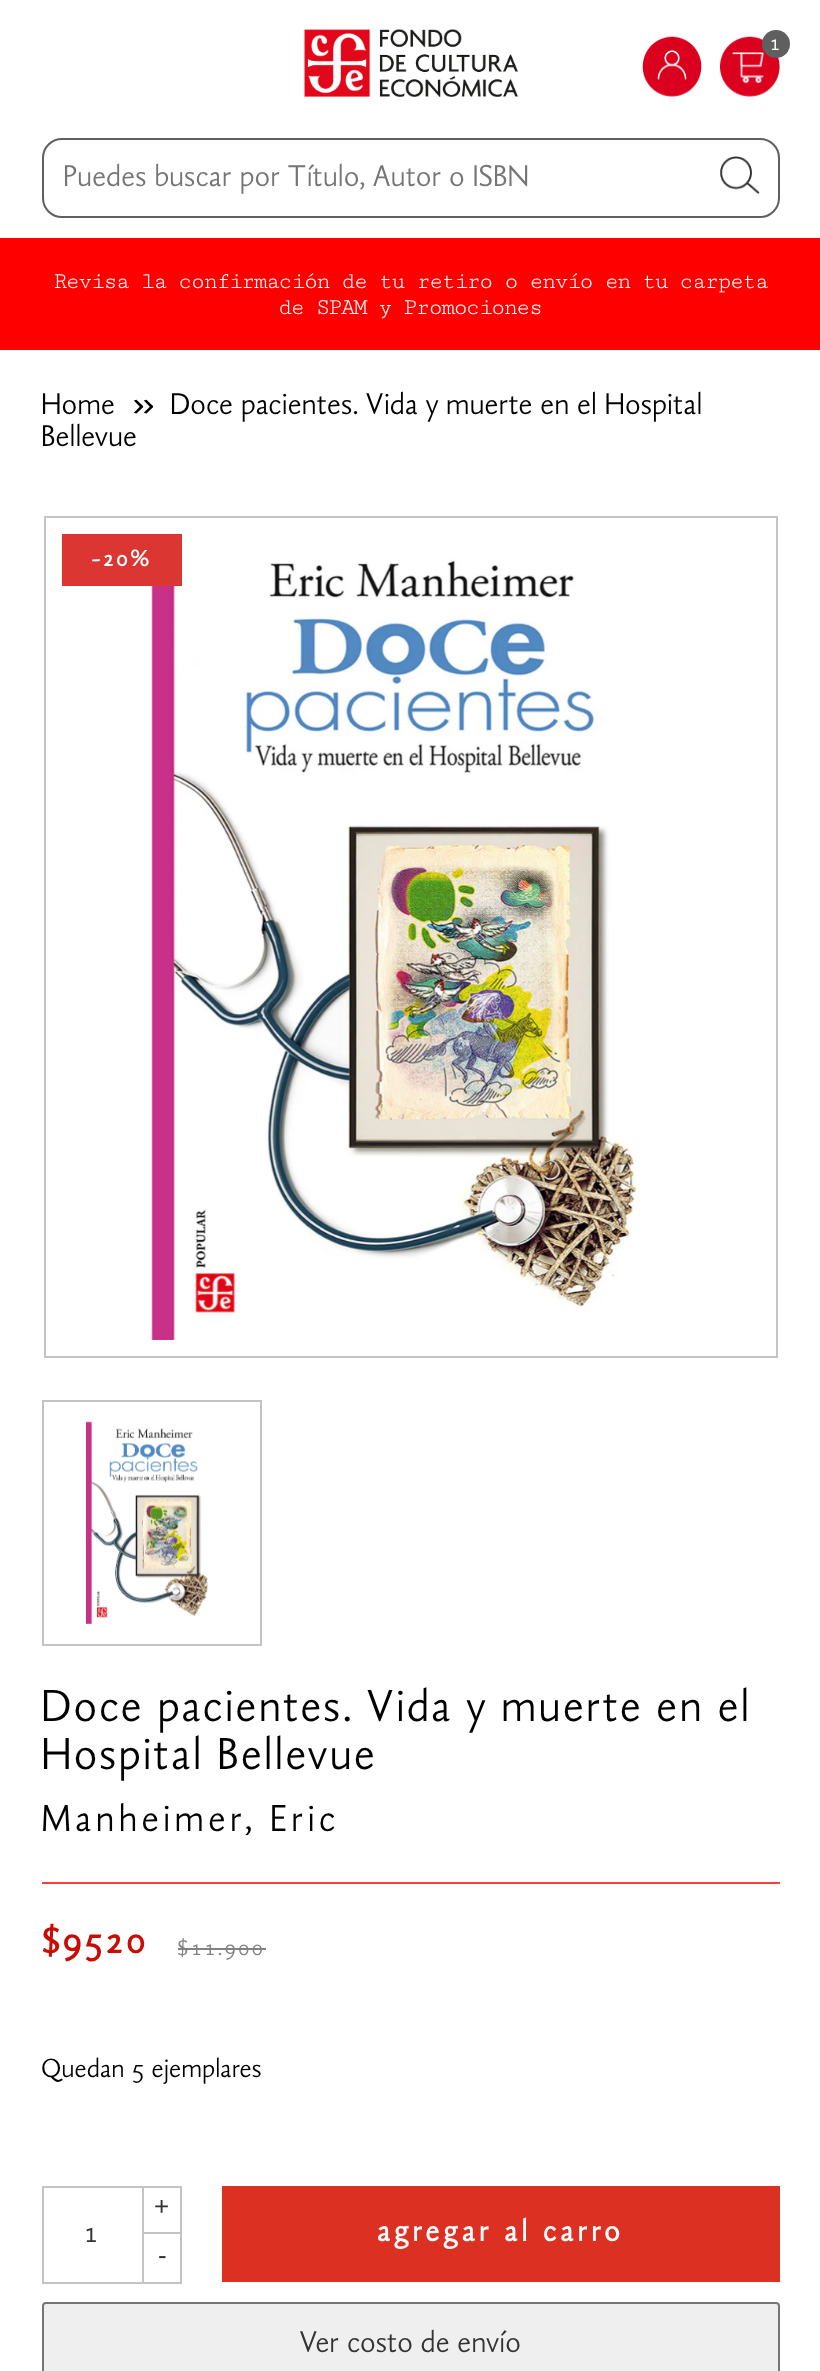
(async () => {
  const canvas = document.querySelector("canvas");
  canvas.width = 820;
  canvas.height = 2371;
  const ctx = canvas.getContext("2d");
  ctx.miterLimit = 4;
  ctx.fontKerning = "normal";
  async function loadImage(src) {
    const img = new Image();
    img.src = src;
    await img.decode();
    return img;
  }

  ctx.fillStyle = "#ffffff";
  ctx.fillRect(0, 0, 820, 2371);
  ctx.drawImage(await loadImage("img/1.png"), 304, 29, 214, 68);
  ctx.drawImage(await loadImage("img/2.png"), 642, 36, 60, 61);
  ctx.drawImage(await loadImage("img/3.png"), 720, 36, 60, 61);
  ctx.fillStyle = "#605f5f";
  ctx.beginPath();
  ctx.arc(776, 44, 14, 0, Math.PI * 2);
  ctx.fill();
  ctx.beginPath();
  ctx.roundRect(43, 139, 736, 78, 19);
  ctx.strokeStyle = "#605f5f";
  ctx.lineWidth = 2;
  ctx.stroke();
  ctx.drawImage(await loadImage("img/4.png"), 720, 156, 40, 38);
  ctx.fillStyle = "#ff0000";
  ctx.fillRect(0, 238, 820, 112);
  ctx.drawImage(await loadImage("img/5.png"), 151, 534, 486, 806);
  ctx.strokeStyle = "#c4c4c4";
  ctx.strokeRect(45, 517, 732, 840);
  ctx.fillStyle = "#db3631";
  ctx.fillRect(62, 534, 120, 52);
  ctx.strokeRect(43, 1401, 218, 244);
  ctx.drawImage(await loadImage("img/6.png"), 86, 1421, 123, 203);
  ctx.fillStyle = "#f93d3d";
  ctx.fillRect(42, 1882, 738, 2);
  ctx.fillStyle = "#828282";
  ctx.fillRect(178, 1948, 88, 2);
  ctx.strokeRect(43, 2187, 138, 96);
  for (const [x, y, w, h, color] of [
    [142, 2232, 40, 2, "#c4c4c4"],
    [142, 2186, 2, 98, "#c4c4c4"],
    [222, 2186, 558, 96, "#dc3022"],
  ]) {
    ctx.fillStyle = color;
    ctx.fillRect(x, y, w, h);
  }
  ctx.fillStyle = "#efefef";
  ctx.beginPath();
  ctx.roundRect(43, 2303, 736, 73, 3);
  ctx.fill();
  ctx.strokeStyle = "#767676";
  ctx.stroke();
  ctx.font = "24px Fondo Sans";
  ctx.fillStyle = "#ffffff";
  ctx.fillText("1", 769, 50);
  ctx.font = "32px Fondo Sans";
  ctx.fillStyle = "#757575";
  ctx.fillText("Puedes buscar por Título, Autor o ISBN", 63, 186);
  ctx.letterSpacing = "-2px";
  ctx.font = "24px Cutive Mono";
  ctx.fillStyle = "#ffffff";
  ctx.fillText("Revisa la confirmación de tu retiro o envío en tu carpeta", 53, 288);
  ctx.fillText("de SPAM y Promociones", 278, 314);
  ctx.letterSpacing = "0px";
  ctx.font = "32px Fondo Sans";
  ctx.fillStyle = "#000000";
  ctx.fillText("Home", 41, 414);
  ctx.font = "bold 32px Fondo Sans";
  ctx.fillText("››", 133, 414);
  ctx.font = "32px Fondo Sans";
  ctx.fillText("Doce pacientes. Vida y muerte en el Hospital", 170, 414);
  ctx.fillText("Bellevue", 41, 446);
  ctx.letterSpacing = "2px";
  ctx.font = "bold 24px Fondo Sans";
  ctx.fillStyle = "#ffffff";
  ctx.fillText("-20%", 91, 566);
  ctx.font = "48px Fondo Sans";
  ctx.fillStyle = "#000000";
  ctx.fillText("Doce pacientes. Vida y muerte en el", 41, 1721);
  ctx.fillText("Hospital Bellevue", 41, 1769);
  ctx.letterSpacing = "4px";
  ctx.font = "40px Fondo Sans";
  ctx.fillText("Manheimer, Eric", 41, 1831);
  ctx.letterSpacing = "2px";
  ctx.font = "bold 40px Fondo Sans";
  ctx.fillStyle = "#c90d06";
  ctx.fillText("$9520", 41, 1953);
  ctx.font = "24px Fondo Sans";
  ctx.fillStyle = "#828282";
  ctx.fillText("$11.900", 177, 1955);
  ctx.letterSpacing = "0px";
  ctx.font = "28px Fondo Sans";
  ctx.fillStyle = "#000000";
  ctx.fillText("Quedan 5 ejemplares", 41, 2077);
  ctx.font = "32px Fondo Sans";
  ctx.fillStyle = "#333333";
  ctx.fillText("1", 83, 2242);
  ctx.font = "26px Liberation Sans";
  ctx.fillText("+", 154, 2215);
  ctx.fillText("-", 158, 2264);
  ctx.letterSpacing = "4px";
  ctx.font = "bold 32px Fondo Sans";
  ctx.fillStyle = "#ffffff";
  ctx.fillText("agregar al carro", 377, 2241);
  ctx.letterSpacing = "0px";
  ctx.font = "32px Fondo Sans";
  ctx.fillStyle = "#333333";
  ctx.fillText("Ver costo de envío", 299, 2352);
})();
